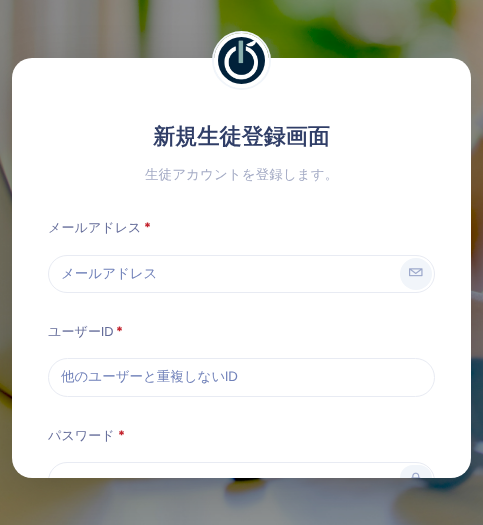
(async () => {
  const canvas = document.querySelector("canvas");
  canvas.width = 483;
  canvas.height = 525;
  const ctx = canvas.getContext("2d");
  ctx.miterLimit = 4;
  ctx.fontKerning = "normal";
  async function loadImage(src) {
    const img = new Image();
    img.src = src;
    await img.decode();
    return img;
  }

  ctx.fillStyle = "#ffffff";
  ctx.fillRect(0, 0, 483, 525);
  ctx.drawImage(await loadImage("img/1.png"), 0, 0, 483, 525);
  ctx.fillStyle = "rgba(0, 0, 0, 0.18)";
  ctx.filter = "blur(24px)";
  ctx.beginPath();
  ctx.roundRect(12, 74, 459, 420, 20);
  ctx.fill();
  ctx.filter = "none";
  ctx.fillStyle = "#ffffff";
  ctx.beginPath();
  ctx.roundRect(12, 58, 459, 420, 20);
  ctx.fill();
  ctx.beginPath();
  ctx.arc(241.5, 60.5, 28.5, 0, Math.PI * 2);
  ctx.strokeStyle = "#f1f5fa";
  ctx.lineWidth = 2;
  ctx.stroke();
  ctx.beginPath();
  ctx.arc(241.5, 60.5, 27.5, 0, Math.PI * 2);
  ctx.fill();
  ctx.drawImage(await loadImage("img/2.png"), 218, 37, 47, 47);
  ctx.beginPath();
  ctx.roundRect(48.5, 255.5, 386, 37, 18.5);
  ctx.strokeStyle = "#e8ebf3";
  ctx.lineWidth = 1;
  ctx.stroke();
  ctx.fillStyle = "#f1f5fa";
  ctx.beginPath();
  ctx.arc(416, 274, 16, 0, Math.PI * 2);
  ctx.fill();
  ctx.drawImage(await loadImage("img/3.png"), 409, 268, 14, 9);
  ctx.beginPath();
  ctx.roundRect(48.5, 358.5, 386, 38, 19);
  ctx.stroke();
  ctx.fillStyle = "#ffffff";
  ctx.beginPath();
  ctx.roundRect(49, 463, 385, 15, [18, 18, 0, 0]);
  ctx.fill();
  ctx.save();
  ctx.beginPath();
  ctx.rect(12, 58, 459, 420);
  ctx.clip();
  ctx.beginPath();
  ctx.roundRect(48.5, 462.5, 386, 37, 18.5);
  ctx.stroke();
  ctx.restore();
  ctx.fillStyle = "#f1f5fa";
  ctx.beginPath();
  ctx.roundRect(400, 465, 32, 13, [16, 16, 0, 0]);
  ctx.fill();
  ctx.drawImage(await loadImage("img/4.png"), 411, 472, 10, 6);
  ctx.letterSpacing = "0.1px";
  ctx.font = "bold 22px WenQuanYi Zen Hei";
  ctx.fillStyle = "#303e67";
  ctx.fillText("新規生徒登録画面", 153, 144);
  ctx.font = "500 13.5px WenQuanYi Zen Hei";
  ctx.fillStyle = "#a4abc5";
  ctx.fillText("生徒アカウントを登録します。", 145, 179);
  ctx.font = "500 13px WenQuanYi Zen Hei";
  ctx.fillStyle = "#656d9a";
  ctx.fillText("メールアドレス", 48, 232);
  ctx.font = "bold 13px Poppins";
  ctx.fillStyle = "#c3232d";
  ctx.fillText("*", 144, 232);
  ctx.letterSpacing = "0px";
  ctx.font = "500 13.5px WenQuanYi Zen Hei";
  ctx.fillStyle = "#7081b9";
  ctx.fillText("メールアドレス", 61, 278);
  ctx.letterSpacing = "0.1px";
  ctx.font = "500 13px WenQuanYi Zen Hei";
  ctx.fillStyle = "#656d9a";
  ctx.fillText("ユーザー", 48, 336);
  ctx.font = "13px Poppins";
  ctx.fillText("ID", 101, 336);
  ctx.font = "bold 13px Poppins";
  ctx.fillStyle = "#c3232d";
  ctx.fillText("*", 116, 336);
  ctx.letterSpacing = "0px";
  ctx.font = "500 13.5px WenQuanYi Zen Hei";
  ctx.fillStyle = "#7081b9";
  ctx.fillText("他のユーザーと重複しない", 61, 381);
  ctx.font = "13.5px Poppins";
  ctx.fillText("ID", 225, 381);
  ctx.letterSpacing = "0.1px";
  ctx.font = "500 13px WenQuanYi Zen Hei";
  ctx.fillStyle = "#656d9a";
  ctx.fillText("パスワード", 48, 440);
  ctx.font = "bold 13px Poppins";
  ctx.fillStyle = "#c3232d";
  ctx.fillText("*", 118, 440);
})();
